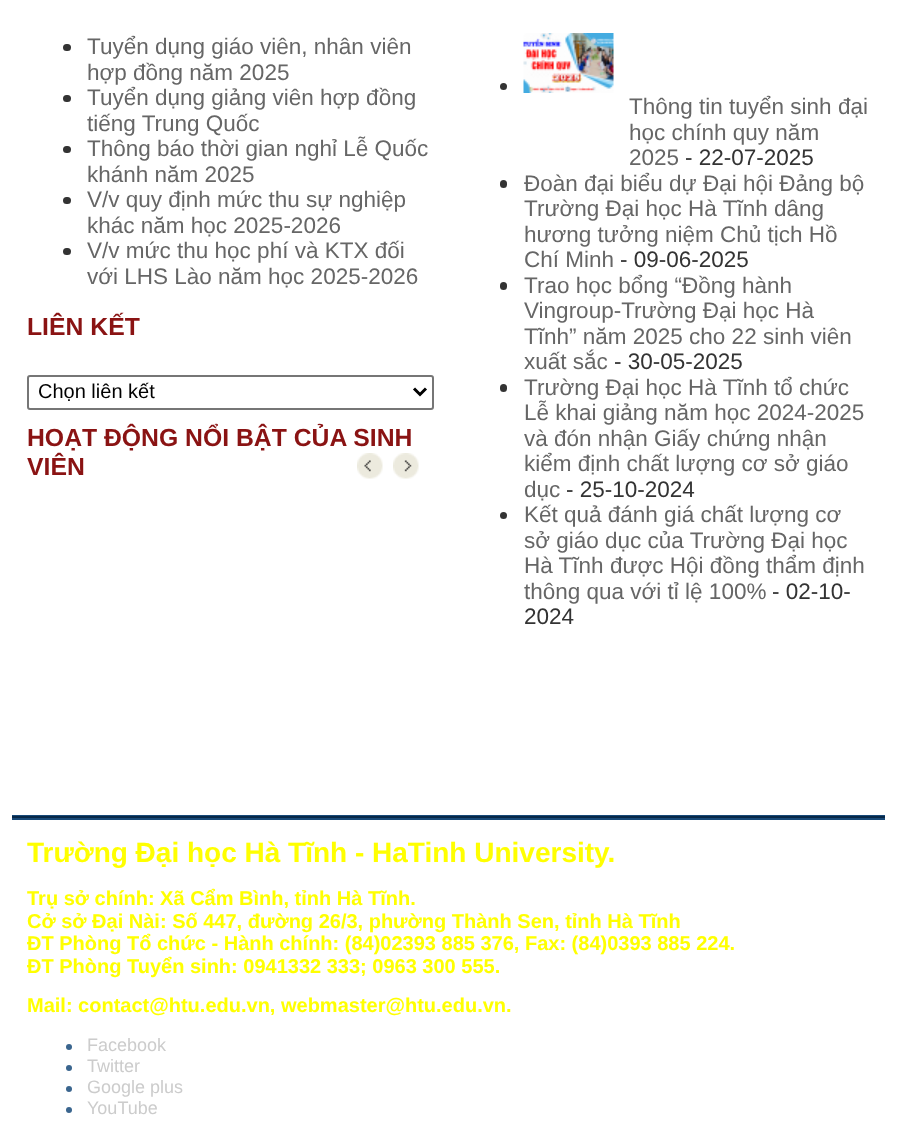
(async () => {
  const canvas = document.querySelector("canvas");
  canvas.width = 897;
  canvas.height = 1136;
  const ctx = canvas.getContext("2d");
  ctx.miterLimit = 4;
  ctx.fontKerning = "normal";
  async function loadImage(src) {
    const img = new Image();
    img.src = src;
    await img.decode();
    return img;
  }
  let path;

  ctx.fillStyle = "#ffffff";
  ctx.fillRect(0, 0, 897, 1136);
  ctx.fillStyle = "#333333";
  ctx.beginPath();
  ctx.roundRect(63, 44, 8, 7, 3.5);
  ctx.fill();
  ctx.beginPath();
  ctx.roundRect(63, 95, 8, 7, 3.5);
  ctx.fill();
  ctx.beginPath();
  ctx.roundRect(63, 146, 8, 7, 3.5);
  ctx.fill();
  ctx.beginPath();
  ctx.roundRect(63, 197, 8, 7, 3.5);
  ctx.fill();
  ctx.beginPath();
  ctx.roundRect(63, 248, 8, 7, 3.5);
  ctx.fill();
  ctx.beginPath();
  ctx.roundRect(28, 376, 405, 33, 2);
  ctx.strokeStyle = "#767676";
  ctx.lineWidth = 2;
  ctx.stroke();
  path = new Path2D("M414 388.5L420 394.5L426 388.5");
  ctx.strokeStyle = "#000000";
  ctx.lineWidth = 3;
  ctx.stroke(path);
  ctx.beginPath();
  ctx.arc(503.5, 86.5, 3.5, 0, Math.PI * 2);
  ctx.fill();
  ctx.drawImage(await loadImage("img/1.png"), 523, 33, 91, 60);
  ctx.beginPath();
  ctx.roundRect(500, 180, 7, 8, 3.5);
  ctx.fill();
  ctx.beginPath();
  ctx.roundRect(500, 282, 7, 8, 3.5);
  ctx.fill();
  ctx.beginPath();
  ctx.roundRect(500, 384, 7, 8, 3.5);
  ctx.fill();
  ctx.beginPath();
  ctx.arc(503.5, 515.5, 3.5, 0, Math.PI * 2);
  ctx.fill();
  ctx.drawImage(await loadImage("img/2.png"), 357, 453, 26, 26);
  ctx.drawImage(await loadImage("img/3.png"), 393, 453, 26, 26);
  for (const [x, y, w, h, color] of [
    [12, 815, 873, 1, "#184978"],
    [12, 816, 873, 2, "#072848"],
    [12, 818, 873, 2, "#184978"],
  ]) {
    ctx.fillStyle = color;
    ctx.fillRect(x, y, w, h);
  }
  ctx.fillStyle = "#3a658e";
  ctx.beginPath();
  ctx.arc(69, 1047, 3, 0, Math.PI * 2);
  ctx.fill();
  ctx.beginPath();
  ctx.arc(69, 1068, 3, 0, Math.PI * 2);
  ctx.fill();
  ctx.beginPath();
  ctx.arc(69, 1089, 3, 0, Math.PI * 2);
  ctx.fill();
  ctx.beginPath();
  ctx.arc(69, 1110, 3, 0, Math.PI * 2);
  ctx.fill();
  ctx.font = "22.5px Liberation Sans";
  ctx.fillStyle = "#666666";
  for (const [text, x, y] of [
    ["Tuyển dụng giáo viên, nhân viên", 87, 54],
    ["hợp đồng năm 2025", 87, 80],
    ["Tuyển dụng giảng viên hợp đồng", 87, 105],
    ["tiếng Trung Quốc", 87, 131],
    ["Thông báo thời gian nghỉ Lễ Quốc", 87, 156],
    ["khánh năm 2025", 87, 182],
    ["V/v quy định mức thu sự nghiệp", 87, 207],
    ["khác năm học 2025-2026", 87, 233],
    ["V/v mức thu học phí và KTX đối", 87, 258],
    ["với LHS Lào năm học 2025-2026", 87, 284],
  ]) {
    ctx.fillText(text, x, y);
  }
  ctx.font = "bold 24.75px Liberation Sans";
  ctx.fillStyle = "#8a1313";
  ctx.fillText("LIÊN KẾT", 27, 335);
  ctx.font = "20px Liberation Sans";
  ctx.fillStyle = "#000000";
  ctx.fillText("Chọn liên kết", 38, 398);
  ctx.font = "22.5px Liberation Sans";
  ctx.fillStyle = "#666666";
  for (const [text, x, y] of [
    ["Thông tin tuyển sinh đại", 629, 114],
    ["học chính quy năm", 629, 140],
    ["2025", 629, 165],
  ]) {
    ctx.fillText(text, x, y);
  }
  ctx.fillStyle = "#333333";
  ctx.fillText("- 22-07-2025", 685, 165);
  ctx.fillStyle = "#666666";
  for (const [text, x, y] of [
    ["Đoàn đại biểu dự Đại hội Đảng bộ", 524, 191],
    ["Trường Đại học Hà Tĩnh dâng", 524, 216],
    ["hương tưởng niệm Chủ tịch Hồ", 524, 242],
    ["Chí Minh", 524, 267],
  ]) {
    ctx.fillText(text, x, y);
  }
  ctx.fillStyle = "#333333";
  ctx.fillText("- 09-06-2025", 620, 267);
  ctx.fillStyle = "#666666";
  for (const [text, x, y] of [
    ["Trao học bổng “Đồng hành", 524, 293],
    ["Vingroup-Trường Đại học Hà", 524, 318],
    ["Tĩnh” năm 2025 cho 22 sinh viên", 524, 344],
    ["xuất sắc", 524, 369],
  ]) {
    ctx.fillText(text, x, y);
  }
  ctx.fillStyle = "#333333";
  ctx.fillText("- 30-05-2025", 614, 369);
  ctx.fillStyle = "#666666";
  for (const [text, x, y] of [
    ["Trường Đại học Hà Tĩnh tổ chức", 524, 395],
    ["Lễ khai giảng năm học 2024-2025", 524, 420],
    ["và đón nhận Giấy chứng nhận", 524, 446],
    ["kiểm định chất lượng cơ sở giáo", 524, 471],
    ["dục", 524, 497],
  ]) {
    ctx.fillText(text, x, y);
  }
  ctx.fillStyle = "#333333";
  ctx.fillText("- 25-10-2024", 566, 497);
  ctx.fillStyle = "#666666";
  for (const [text, x, y] of [
    ["Kết quả đánh giá chất lượng cơ", 524, 522],
    ["sở giáo dục của Trường Đại học", 524, 548],
    ["Hà Tĩnh được Hội đồng thẩm định", 524, 573],
    ["thông qua với tỉ lệ 100%", 524, 599],
  ]) {
    ctx.fillText(text, x, y);
  }
  ctx.fillStyle = "#333333";
  ctx.fillText("- 02-10-", 772, 599);
  ctx.fillText("2024", 524, 624);
  ctx.font = "bold 24.75px Liberation Sans";
  ctx.fillStyle = "#8a1313";
  ctx.fillText("HOẠT ĐỘNG NỔI BẬT CỦA SINH", 27, 446);
  ctx.fillText("VIÊN", 27, 475);
  ctx.font = "bold 28px Liberation Sans";
  ctx.fillStyle = "#ffff00";
  ctx.fillText("Trường Đại học Hà Tĩnh - HaTinh University.", 27, 862);
  ctx.font = "bold 20px Liberation Sans";
  for (const [text, x, y] of [
    ["Trụ sở chính: Xã Cẩm Bình, tỉnh Hà Tĩnh.", 27, 905],
    ["Cở sở Đại Nài: Số 447, đường 26/3, phường Thành Sen, tỉnh Hà Tĩnh", 27, 928],
    ["ĐT Phòng Tổ chức - Hành chính: (84)02393 885 376, Fax: (84)0393 885 224.", 27, 950],
    ["ĐT Phòng Tuyển sinh: 0941332 333; 0963 300 555.", 27, 973],
    ["Mail: contact@htu.edu.vn, webmaster@htu.edu.vn.", 27, 1012],
  ]) {
    ctx.fillText(text, x, y);
  }
  ctx.font = "18px Liberation Sans";
  ctx.fillStyle = "#cccccc";
  for (const [text, x, y] of [
    ["Facebook", 87, 1051],
    ["Twitter", 87, 1072],
    ["Google plus", 87, 1093],
    ["YouTube", 87, 1114],
  ]) {
    ctx.fillText(text, x, y);
  }
})();
